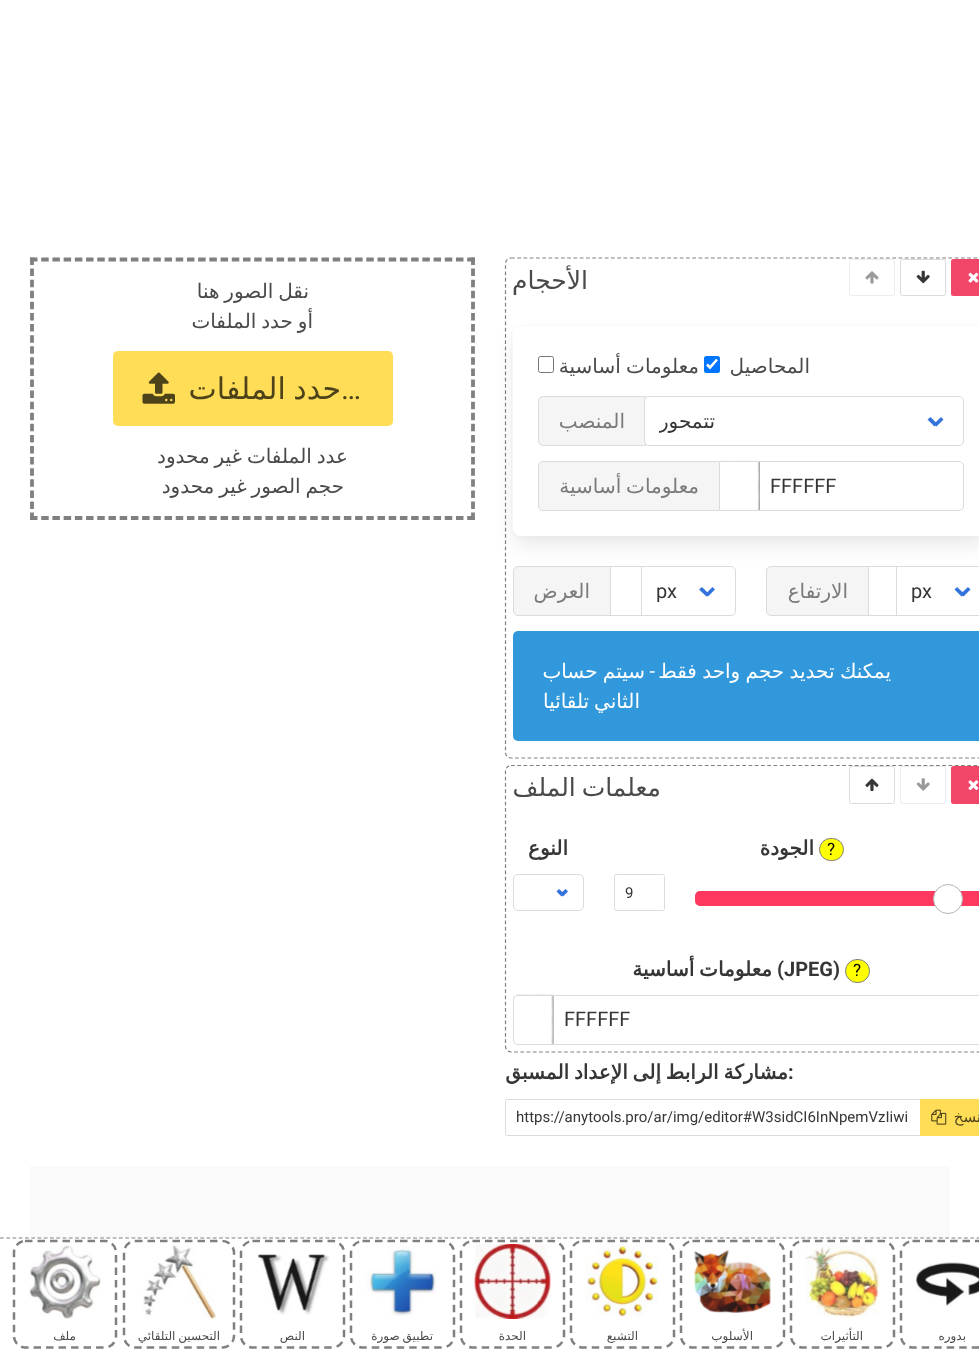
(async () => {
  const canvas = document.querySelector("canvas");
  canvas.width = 979;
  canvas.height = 1362;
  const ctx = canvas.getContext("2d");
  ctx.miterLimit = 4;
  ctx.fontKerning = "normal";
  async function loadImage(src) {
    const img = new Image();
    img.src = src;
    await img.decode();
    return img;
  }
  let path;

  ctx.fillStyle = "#ffffff";
  ctx.fillRect(0, 0, 979, 1362);
  path = new Path2D("M511 258H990C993 258 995.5 260.5 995.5 264V752.5C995.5 755.5 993 758 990 758H511C508 758 505.5 755.5 505.5 752.5V264C505.5 260.5 508 258 511 258Z");
  ctx.strokeStyle = "#808080";
  ctx.lineWidth = 1.2;
  ctx.setLineDash([3.75, 2.5]);
  ctx.stroke(path);
  ctx.fillStyle = "#f14668";
  ctx.beginPath();
  ctx.roundRect(951, 259, 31, 37, 2.5);
  ctx.fill();
  ctx.drawImage(await loadImage("img/1.png"), 968, 272, 11, 11);
  ctx.beginPath();
  ctx.roundRect(900.5, 259.5, 45, 36, 2);
  ctx.strokeStyle = "#dbdbdb";
  ctx.lineWidth = 1;
  ctx.setLineDash([]);
  ctx.stroke();
  ctx.drawImage(await loadImage("img/2.png"), 916, 270, 14, 14);
  ctx.beginPath();
  ctx.roundRect(849.5, 259.5, 45, 36, 2);
  ctx.strokeStyle = "#ededed";
  ctx.stroke();
  ctx.drawImage(await loadImage("img/3.png"), 865, 271, 14, 13);
  ctx.beginPath();
  ctx.roundRect(511.5, 325.5, 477, 212, 8.5);
  ctx.strokeStyle = "#fafafa";
  ctx.stroke();
  ctx.save();
  path = new Path2D("M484 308H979V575H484ZM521 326H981C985.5 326 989 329.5 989 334V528C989 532.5 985.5 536 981 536H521C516.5 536 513 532.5 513 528V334C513 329.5 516.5 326 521 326Z");
  ctx.clip(path, "evenodd");
  ctx.fillStyle = "rgba(10, 10, 10, 0.1)";
  ctx.filter = "blur(10px)";
  ctx.beginPath();
  ctx.roundRect(515, 339, 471, 205, 5);
  ctx.fill();
  ctx.filter = "none";
  ctx.restore();
  ctx.beginPath();
  ctx.roundRect(538.5, 356.5, 15, 16, 2);
  ctx.strokeStyle = "#767676";
  ctx.stroke();
  ctx.fillStyle = "#0075ff";
  ctx.beginPath();
  ctx.roundRect(704, 356, 16, 17, 2.5);
  ctx.fill();
  path = new Path2D("M707 364.5L710 367.5L717 359.5");
  ctx.strokeStyle = "#ffffff";
  ctx.lineWidth = 2.6;
  ctx.stroke(path);
  ctx.fillStyle = "#f5f5f5";
  ctx.beginPath();
  ctx.roundRect(538.5, 396.5, 107, 49, [4.5, 0, 0, 4.5]);
  ctx.fill();
  ctx.strokeStyle = "#dbdbdb";
  ctx.lineWidth = 1;
  ctx.stroke();
  ctx.fillStyle = "#ffffff";
  ctx.beginPath();
  ctx.roundRect(644.5, 396.5, 319, 49, 4.5);
  ctx.fill();
  ctx.stroke();
  ctx.fillStyle = "#3273dc";
  path = new Path2D("M934 424L941 417L943.5 419.5L936.5 426.5Z");
  ctx.fill(path);
  path = new Path2D("M927.5 419.5L930.5 417L937.5 424L934.5 426.5Z");
  ctx.fill(path);
  ctx.fillStyle = "#f5f5f5";
  ctx.beginPath();
  ctx.roundRect(538.5, 461.5, 181, 49, [4.5, 0, 0, 4.5]);
  ctx.fill();
  ctx.stroke();
  ctx.fillStyle = "#ffffff";
  ctx.beginPath();
  ctx.roundRect(719, 461, 245, 50, [0, 5, 5, 0]);
  ctx.fill();
  ctx.drawImage(await loadImage("img/4.png"), 720, 460, 40, 50);
  ctx.beginPath();
  ctx.roundRect(719.5, 461.5, 244, 49, [0, 4.5, 4.5, 0]);
  ctx.stroke();
  ctx.fillStyle = "#f5f5f5";
  ctx.beginPath();
  ctx.roundRect(766.5, 566.5, 102, 49, [4.5, 0, 0, 4.5]);
  ctx.fill();
  ctx.stroke();
  ctx.strokeRect(868.5, 566.5, 29, 49);
  ctx.fillStyle = "#ffffff";
  ctx.fillRect(897, 567, 1, 48);
  ctx.strokeRect(896.5, 566.5, 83, 49);
  ctx.fillStyle = "#3273dc";
  path = new Path2D("M960.5 594L968 587L970.5 589.5L963.5 596.5Z");
  ctx.fill(path);
  path = new Path2D("M954.5 589.5L957 587L964.5 594L961.5 596.5Z");
  ctx.fill(path);
  ctx.fillStyle = "#f5f5f5";
  ctx.beginPath();
  ctx.roundRect(513.5, 566.5, 97, 49, [4.5, 0, 0, 4.5]);
  ctx.fill();
  ctx.stroke();
  ctx.strokeRect(610.5, 566.5, 32, 49);
  ctx.fillStyle = "#ffffff";
  ctx.beginPath();
  ctx.roundRect(641.5, 566.5, 94, 49, [0, 4.5, 4.5, 0]);
  ctx.fill();
  ctx.stroke();
  ctx.fillStyle = "#3273dc";
  path = new Path2D("M705.5 594L712.5 587L715 589.5L708 596.5Z");
  ctx.fill(path);
  path = new Path2D("M699 589.5L702 587L709 594L706.5 596.5Z");
  ctx.fill(path);
  ctx.fillStyle = "#3298dc";
  ctx.beginPath();
  ctx.roundRect(513, 631, 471, 110, 5);
  ctx.fill();
  path = new Path2D("M511 765.5H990C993 765.5 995.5 768 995.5 771V1046C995.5 1049.5 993 1052 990 1052H511C508 1052 505.5 1049.5 505.5 1046V771C505.5 768 508 765.5 511 765.5Z");
  ctx.strokeStyle = "#808080";
  ctx.lineWidth = 1.2;
  ctx.setLineDash([3.75, 2.5]);
  ctx.stroke(path);
  ctx.fillStyle = "#f14668";
  ctx.beginPath();
  ctx.roundRect(951, 766, 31, 38, 2.5);
  ctx.fill();
  ctx.drawImage(await loadImage("img/5.png"), 968, 780, 11, 11);
  ctx.fillStyle = "rgba(255, 255, 255, 0.5)";
  ctx.beginPath();
  ctx.roundRect(900, 766, 46, 38, 2.5);
  ctx.fill();
  ctx.beginPath();
  ctx.roundRect(900.5, 766.5, 45, 37, 2);
  ctx.strokeStyle = "rgba(219, 219, 219, 0.5)";
  ctx.lineWidth = 1;
  ctx.setLineDash([]);
  ctx.stroke();
  ctx.drawImage(await loadImage("img/6.png"), 916, 778, 14, 13);
  ctx.fillStyle = "#ffffff";
  ctx.beginPath();
  ctx.roundRect(849.5, 766.5, 45, 37, 2);
  ctx.fill();
  ctx.strokeStyle = "#dbdbdb";
  ctx.stroke();
  ctx.drawImage(await loadImage("img/7.png"), 865, 778, 14, 14);
  ctx.fillStyle = "#ffff00";
  ctx.beginPath();
  ctx.roundRect(819.5, 838.5, 24, 22, 11);
  ctx.fill();
  ctx.strokeStyle = "#808080";
  ctx.stroke();
  ctx.fillStyle = "#ff3860";
  ctx.beginPath();
  ctx.roundRect(695, 891, 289, 15, 5);
  ctx.fill();
  ctx.fillStyle = "#ffffff";
  ctx.beginPath();
  ctx.arc(948, 899, 14.5, 0, Math.PI * 2);
  ctx.fill();
  ctx.strokeStyle = "#b5b5b5";
  ctx.stroke();
  ctx.beginPath();
  ctx.roundRect(614.5, 874.5, 50, 36, 2);
  ctx.strokeStyle = "#dbdbdb";
  ctx.stroke();
  ctx.beginPath();
  ctx.roundRect(513.5, 874.5, 70, 36, 4.5);
  ctx.stroke();
  ctx.fillStyle = "#3273dc";
  path = new Path2D("M560.5 893.5L565.5 889L568 891.5L563 896.5Z");
  ctx.fill(path);
  path = new Path2D("M556.5 891.5L559 889L564 893.5L561.5 896.5Z");
  ctx.fill(path);
  ctx.fillStyle = "#ffff00";
  ctx.beginPath();
  ctx.roundRect(845.5, 959.5, 24, 23, 11.5);
  ctx.fill();
  ctx.strokeStyle = "#808080";
  ctx.stroke();
  ctx.drawImage(await loadImage("img/8.png"), 513, 994, 41, 51);
  ctx.beginPath();
  ctx.roundRect(513.5, 995.5, 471, 49, 4.5);
  ctx.strokeStyle = "#dbdbdb";
  ctx.stroke();
  ctx.beginPath();
  ctx.roundRect(505.5, 1099.5, 415, 36, [2, 0, 0, 2]);
  ctx.stroke();
  ctx.fillStyle = "#ffdd57";
  ctx.fillRect(920, 1099, 59, 37);
  ctx.drawImage(await loadImage("img/9.png"), 931, 1109, 16, 16);
  path = new Path2D("M30 259.5H475");
  ctx.strokeStyle = "#808080";
  ctx.lineWidth = 3.8;
  ctx.setLineDash([7.5, 3.71]);
  ctx.stroke(path);
  path = new Path2D("M473 257.5V520");
  ctx.setLineDash([7.5, 3.59]);
  ctx.stroke(path);
  path = new Path2D("M30 518H475");
  ctx.setLineDash([7.5, 3.71]);
  ctx.stroke(path);
  path = new Path2D("M32 257.5V520");
  ctx.setLineDash([7.5, 3.59]);
  ctx.stroke(path);
  ctx.beginPath();
  ctx.roundRect(113, 351, 280, 75, 5);
  ctx.fill();
  ctx.drawImage(await loadImage("img/10.png"), 142, 372, 33, 32);
  ctx.fillStyle = "#fafafa";
  ctx.fillRect(30, 1166, 920, 72);
  path = new Path2D("M0 1238H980");
  ctx.lineWidth = 1.2;
  ctx.setLineDash([3.75, 2.51]);
  ctx.stroke(path);
  path = new Path2D("M912.5 1241H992.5C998.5 1241 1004 1246.5 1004 1252.5V1336C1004 1342.5 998.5 1347.5 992.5 1347.5H912.5C906.5 1347.5 901 1342.5 901 1336V1252.5C901 1246.5 906.5 1241 912.5 1241Z");
  ctx.lineWidth = 2.5;
  ctx.setLineDash([7.5, 5]);
  ctx.stroke(path);
  ctx.drawImage(await loadImage("img/11.png"), 916, 1262, 63, 44);
  path = new Path2D("M802.5 1241H882.5C888.5 1241 894 1246.5 894 1252.5V1336C894 1342.5 888.5 1347.5 882.5 1347.5H802.5C796.5 1347.5 791 1342.5 791 1336V1252.5C791 1246.5 796.5 1241 802.5 1241Z");
  ctx.stroke(path);
  ctx.drawImage(await loadImage("img/12.png"), 805, 1244, 76, 75);
  path = new Path2D("M692.5 1241H772.5C778.5 1241 784 1246.5 784 1252.5V1336C784 1342.5 778.5 1347.5 772.5 1347.5H692.5C686.5 1347.5 681 1342.5 681 1336V1252.5C681 1246.5 686.5 1241 692.5 1241Z");
  ctx.stroke(path);
  ctx.drawImage(await loadImage("img/13.png"), 694, 1249, 77, 64);
  path = new Path2D("M582.5 1241H662.5C668.5 1241 674 1246.5 674 1252.5V1336C674 1342.5 668.5 1347.5 662.5 1347.5H582.5C576.5 1347.5 571 1342.5 571 1336V1252.5C571 1246.5 576.5 1241 582.5 1241Z");
  ctx.stroke(path);
  ctx.drawImage(await loadImage("img/14.png"), 585, 1244, 73, 73);
  path = new Path2D("M472.5 1241H552.5C558.5 1241 564 1246.5 564 1252.5V1336C564 1342.5 558.5 1347.5 552.5 1347.5H472.5C466.5 1347.5 461 1342.5 461 1336V1252.5C461 1246.5 466.5 1241 472.5 1241Z");
  ctx.stroke(path);
  ctx.drawImage(await loadImage("img/15.png"), 474, 1244, 77, 75);
  path = new Path2D("M362.5 1241H442.5C448.5 1241 454 1246.5 454 1252.5V1336C454 1342.5 448.5 1347.5 442.5 1347.5H362.5C356.5 1347.5 351 1342.5 351 1336V1252.5C351 1246.5 356.5 1241 362.5 1241Z");
  ctx.stroke(path);
  ctx.drawImage(await loadImage("img/16.png"), 365, 1244, 72, 72);
  path = new Path2D("M252.5 1241H332.5C338.5 1241 344 1246.5 344 1252.5V1336C344 1342.5 338.5 1347.5 332.5 1347.5H252.5C246.5 1347.5 241 1342.5 241 1336V1252.5C241 1246.5 246.5 1241 252.5 1241Z");
  ctx.stroke(path);
  ctx.drawImage(await loadImage("img/17.png"), 257, 1253, 73, 62);
  path = new Path2D("M135 1241H222.5C228.5 1241 234 1246.5 234 1252.5V1336C234 1342.5 228.5 1347.5 222.5 1347.5H135C129 1347.5 124 1342.5 124 1336V1252.5C124 1246.5 129 1241 135 1241Z");
  ctx.stroke(path);
  ctx.drawImage(await loadImage("img/18.png"), 143, 1245, 74, 74);
  path = new Path2D("M25 1241H105C111 1241 116 1246.5 116 1252.5V1336C116 1342.5 111 1347.5 105 1347.5H25C19 1347.5 14 1342.5 14 1336V1252.5C14 1246.5 19 1241 25 1241Z");
  ctx.stroke(path);
  ctx.drawImage(await loadImage("img/19.png"), 29, 1245, 72, 74);
  ctx.direction = "rtl";
  ctx.font = "25px DejaVu Sans";
  ctx.fillStyle = "#4a4a4a";
  ctx.fillText("الأحجام", 588, 289);
  ctx.font = "20px DejaVu Sans";
  ctx.fillText("المحاصيل", 810, 373);
  ctx.wordSpacing = "-1px";
  ctx.fillText("معلومات أساسية", 699, 373);
  ctx.save();
  ctx.beginPath();
  ctx.rect(659, 406, 254, 30);
  ctx.clip();
  ctx.wordSpacing = "0px";
  ctx.fillStyle = "#363636";
  ctx.fillText("تتمحور", 715, 428);
  ctx.restore();
  ctx.wordSpacing = "0px";
  ctx.fillStyle = "#7a7a7a";
  ctx.fillText("المنصب", 625, 428);
  ctx.direction = "ltr";
  ctx.font = "20px Roboto";
  ctx.fillStyle = "#363636";
  ctx.fillText("FFFFFF", 770, 493);
  ctx.wordSpacing = "-1.5px";
  ctx.direction = "rtl";
  ctx.font = "20px DejaVu Sans";
  ctx.fillStyle = "#7a7a7a";
  ctx.fillText("معلومات أساسية", 699, 493);
  ctx.wordSpacing = "0px";
  ctx.direction = "ltr";
  ctx.font = "20px Roboto";
  ctx.fillStyle = "#363636";
  ctx.fillText("px", 911, 598);
  ctx.direction = "rtl";
  ctx.font = "20px DejaVu Sans";
  ctx.fillStyle = "#7a7a7a";
  ctx.fillText("الارتفاع", 848, 598);
  ctx.direction = "ltr";
  ctx.font = "20px Roboto";
  ctx.fillStyle = "#363636";
  ctx.fillText("px", 656, 598);
  ctx.direction = "rtl";
  ctx.font = "20px DejaVu Sans";
  ctx.fillStyle = "#7a7a7a";
  ctx.fillText("العرض", 590, 598);
  ctx.wordSpacing = "-1px";
  ctx.fillStyle = "#ffffff";
  ctx.fillText("يمكنك تحديد حجم واحد فقط", 891, 678);
  ctx.wordSpacing = "0px";
  ctx.font = "20px Roboto";
  ctx.fillText("-", 655, 678);
  ctx.wordSpacing = "-1px";
  ctx.font = "20px DejaVu Sans";
  ctx.fillText("سيتم حساب", 645, 678);
  ctx.wordSpacing = "-1.5px";
  ctx.fillText("الثاني تلقائيا", 640, 708);
  ctx.wordSpacing = "-2px";
  ctx.font = "25px DejaVu Sans";
  ctx.fillStyle = "#4a4a4a";
  ctx.fillText("معلمات الملف", 661, 796);
  ctx.wordSpacing = "0px";
  ctx.direction = "ltr";
  ctx.font = "17px Roboto";
  ctx.fillStyle = "#000000";
  ctx.fillText("?", 827, 855);
  ctx.direction = "rtl";
  ctx.font = "bold 20px DejaVu Sans";
  ctx.fillStyle = "#363636";
  ctx.fillText("الجودة", 814, 855);
  ctx.direction = "ltr";
  ctx.font = "15px Roboto";
  ctx.fillText("9", 625, 898);
  ctx.direction = "rtl";
  ctx.font = "bold 20px DejaVu Sans";
  ctx.fillText("النوع", 568, 855);
  ctx.direction = "ltr";
  ctx.font = "17px Roboto";
  ctx.fillStyle = "#000000";
  ctx.fillText("?", 853, 976);
  ctx.font = "bold 20px Roboto";
  ctx.fillStyle = "#363636";
  ctx.fillText("(JPEG)", 777, 976);
  ctx.wordSpacing = "-1.5px";
  ctx.direction = "rtl";
  ctx.font = "bold 20px DejaVu Sans";
  ctx.fillText("معلومات أساسية", 772, 976);
  ctx.wordSpacing = "0px";
  ctx.direction = "ltr";
  ctx.font = "20px Roboto";
  ctx.fillText("FFFFFF", 564, 1026);
  ctx.wordSpacing = "-1.5px";
  ctx.direction = "rtl";
  ctx.font = "bold 20px DejaVu Sans";
  ctx.fillText("مشاركة الرابط إلى الإعداد المسبق", 788, 1079);
  ctx.wordSpacing = "0px";
  ctx.direction = "ltr";
  ctx.font = "bold 20px Roboto";
  ctx.fillText(":", 788, 1079);
  ctx.direction = "rtl";
  ctx.font = "15px DejaVu Sans";
  ctx.fillStyle = "#4d421a";
  ctx.fillText("نسخ", 981, 1122);
  ctx.direction = "ltr";
  ctx.font = "15px Roboto";
  ctx.fillStyle = "#363636";
  ctx.fillText("https://anytools.pro/ar/img/editor#W3sidCI6InNpemVzIiwi", 516, 1122);
  ctx.wordSpacing = "-1.5px";
  ctx.direction = "rtl";
  ctx.font = "20px DejaVu Sans";
  ctx.fillStyle = "#4a4a4a";
  ctx.fillText("نقل الصور هنا", 309, 298);
  ctx.fillText("أو حدد الملفات", 313, 328);
  ctx.wordSpacing = "0px";
  ctx.direction = "ltr";
  ctx.font = "30px Roboto";
  ctx.fillStyle = "#4d421a";
  ctx.fillText("…", 341, 399);
  ctx.wordSpacing = "-2px";
  ctx.direction = "rtl";
  ctx.font = "30px DejaVu Sans";
  ctx.fillText("حدد الملفات", 341, 399);
  ctx.wordSpacing = "-1.5px";
  ctx.font = "20px DejaVu Sans";
  ctx.fillStyle = "#4a4a4a";
  ctx.fillText("عدد الملفات غير محدود", 348, 463);
  ctx.fillText("حجم الصور غير محدود", 344, 493);
  ctx.wordSpacing = "0px";
  ctx.font = "12px DejaVu Sans";
  for (const [text, x, y] of [
    ["بدوره", 966, 1340],
    ["التأثيرات", 863, 1340],
    ["الأسلوب", 753, 1340],
    ["التشبع", 638, 1340],
    ["الحدة", 526, 1340],
  ]) {
    ctx.fillText(text, x, y);
  }
  ctx.wordSpacing = "-1px";
  ctx.fillText("تطبيق صورة", 433, 1340);
  ctx.wordSpacing = "0px";
  ctx.fillText("النص", 305, 1340);
  ctx.wordSpacing = "-1px";
  ctx.fillText("التحسين التلقائي", 220, 1340);
  ctx.wordSpacing = "0px";
  ctx.fillText("ملف", 76, 1340);
})();
